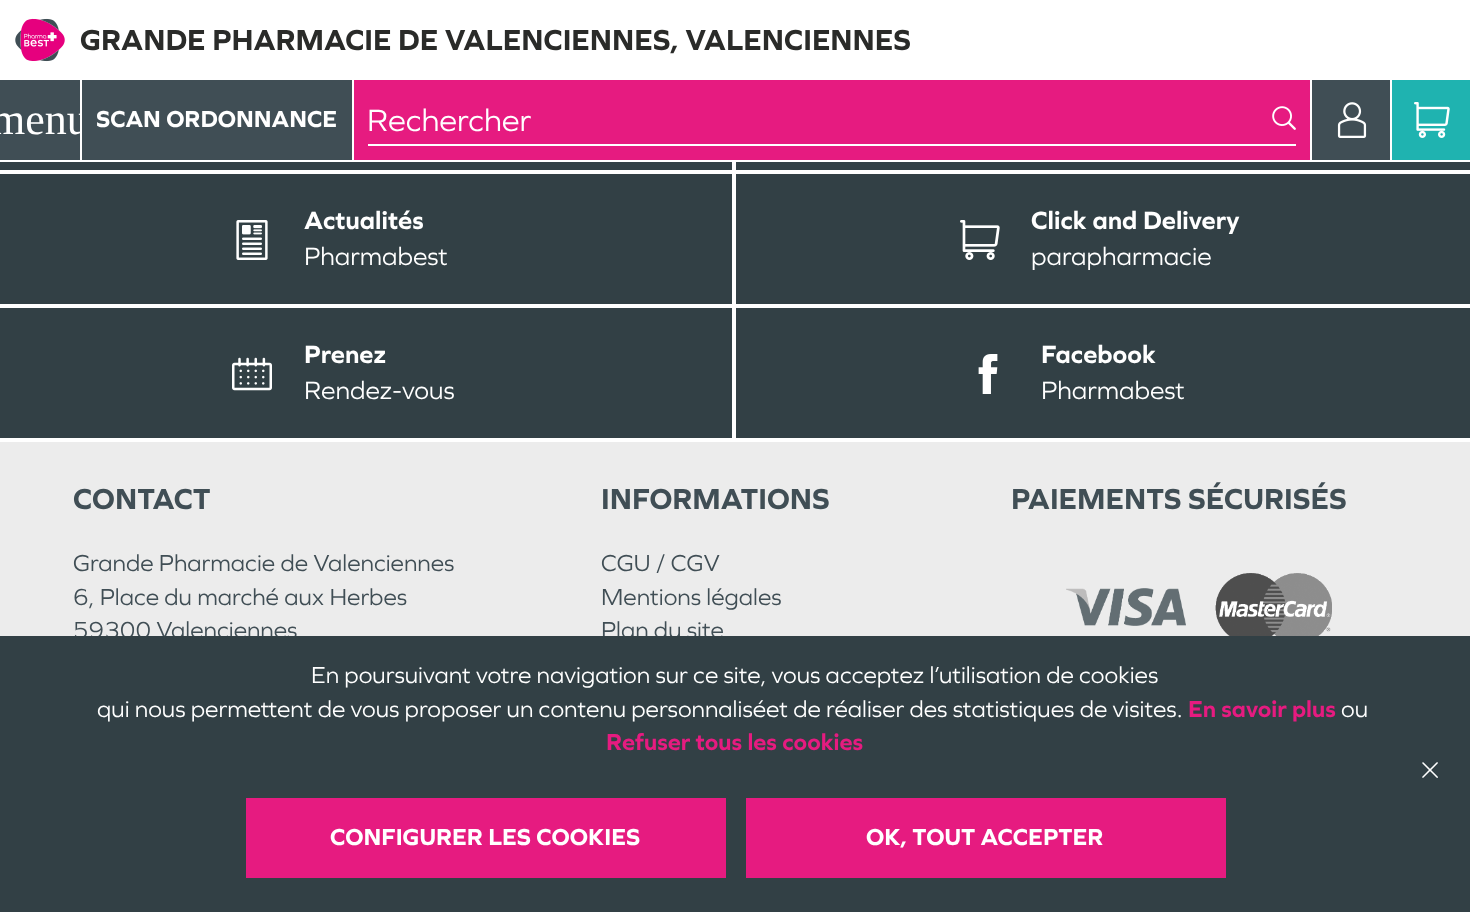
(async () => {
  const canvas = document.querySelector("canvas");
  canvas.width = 1470;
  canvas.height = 912;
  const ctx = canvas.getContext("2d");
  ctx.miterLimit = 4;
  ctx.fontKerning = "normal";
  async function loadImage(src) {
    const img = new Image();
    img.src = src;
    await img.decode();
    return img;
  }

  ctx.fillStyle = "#324045";
  ctx.fillRect(0, 0, 1470, 912);
  ctx.fillStyle = "#ffffff";
  ctx.fillRect(0, 0, 1470, 162);
  ctx.drawImage(await loadImage("img/1.png"), 15, 18, 50, 44);
  for (const [x, y, w, h, color] of [
    [0, 80, 80, 80, "#404e55"],
    [354, 80, 956, 80, "#e61b80"],
    [368, 144, 928, 2, "#ffffff"],
  ]) {
    ctx.fillStyle = color;
    ctx.fillRect(x, y, w, h);
  }
  ctx.drawImage(await loadImage("img/2.png"), 1272, 106, 24, 24);
  ctx.fillStyle = "#404e55";
  ctx.fillRect(1312, 80, 78, 80);
  ctx.drawImage(await loadImage("img/3.png"), 1337, 102, 30, 36);
  ctx.fillStyle = "#1fb3b0";
  ctx.fillRect(1392, 80, 78, 80);
  ctx.drawImage(await loadImage("img/4.png"), 1414, 102, 36, 36);
  for (const [x, y, w, h, color] of [
    [732, 162, 4, 280, "#ffffff"],
    [0, 170, 1470, 4, "#ffffff"],
    [0, 304, 1470, 4, "#ffffff"],
  ]) {
    ctx.fillStyle = color;
    ctx.fillRect(x, y, w, h);
  }
  ctx.drawImage(await loadImage("img/5.png"), 236, 220, 32, 40);
  ctx.drawImage(await loadImage("img/6.png"), 960, 220, 40, 40);
  ctx.fillRect(0, 438, 1470, 4);
  ctx.drawImage(await loadImage("img/7.png"), 232, 357, 40, 34);
  ctx.drawImage(await loadImage("img/8.png"), 978, 354, 20, 40);
  ctx.fillStyle = "#ececec";
  ctx.fillRect(0, 442, 1470, 194);
  ctx.drawImage(await loadImage("img/9.png"), 1066, 588, 120, 38);
  ctx.drawImage(await loadImage("img/10.png"), 1215, 573, 117, 63);
  ctx.fillStyle = "#e61b80";
  ctx.fillRect(246, 798, 480, 80);
  ctx.fillRect(746, 798, 480, 80);
  ctx.drawImage(await loadImage("img/11.png"), 1422, 762, 16, 16);
  ctx.font = "bold 30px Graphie";
  ctx.fillStyle = "#2a2b29";
  ctx.fillText("GRANDE PHARMACIE DE VALENCIENNES, VALENCIENNES", 80, 50);
  ctx.font = "44px Liberation Serif";
  ctx.fillStyle = "#ffffff";
  ctx.fillText("menu", -9, 134);
  ctx.fillStyle = "#404e55";
  ctx.fillRect(82, 80, 270, 80);
  ctx.font = "bold 24px Graphie";
  ctx.fillStyle = "#ffffff";
  ctx.fillText("SCAN ORDONNANCE", 96, 127);
  ctx.font = "32px Graphie";
  ctx.fillText("Rechercher", 367, 131);
  ctx.font = "bold 26px Graphie";
  ctx.fillText("Actualités", 304, 229);
  ctx.font = "26px Graphie";
  ctx.fillText("Pharmabest", 304, 265);
  ctx.font = "bold 26px Graphie";
  ctx.fillText("Click and Delivery", 1031, 229);
  ctx.font = "26px Graphie";
  ctx.fillText("parapharmacie", 1031, 265);
  ctx.font = "bold 26px Graphie";
  ctx.fillText("Prenez", 304, 363);
  ctx.font = "26px Graphie";
  ctx.fillText("Rendez-vous", 304, 399);
  ctx.font = "bold 26px Graphie";
  ctx.fillText("Facebook", 1041, 363);
  ctx.font = "26px Graphie";
  ctx.fillText("Pharmabest", 1041, 399);
  ctx.font = "bold 30px Graphie";
  ctx.fillStyle = "#404e55";
  ctx.fillText("CONTACT", 73, 509);
  ctx.font = "24px Graphie";
  for (const [text, x, y] of [
    ["Grande Pharmacie de Valenciennes", 73, 571],
    ["6, Place du marché aux Herbes", 73, 605],
    ["59300 Valenciennes", 73, 638],
  ]) {
    ctx.fillText(text, x, y);
  }
  ctx.font = "bold 30px Graphie";
  ctx.fillText("INFORMATIONS", 601, 509);
  ctx.font = "24px Graphie";
  for (const [text, x, y] of [
    ["CGU / CGV", 601, 571],
    ["Mentions légales", 601, 605],
    ["Plan du site", 601, 638],
  ]) {
    ctx.fillText(text, x, y);
  }
  ctx.font = "bold 30px Graphie";
  ctx.fillText("PAIEMENTS SÉCURISÉS", 1011, 509);
  ctx.fillStyle = "#324045";
  ctx.fillRect(75, 636, 648, 3);
  ctx.font = "24px Graphie";
  ctx.fillStyle = "#ffffff";
  ctx.fillText("En poursuivant votre navigation sur ce site, vous acceptez l’utilisation de cookies", 311, 683);
  ctx.fillText("qui nous permettent de vous proposer un contenu personnaliséet de réaliser des statistiques de visites.", 97, 717);
  ctx.font = "bold 24px Graphie";
  ctx.fillStyle = "#e61b80";
  ctx.fillText("En savoir plus", 1188, 717);
  ctx.font = "24px Graphie";
  ctx.fillStyle = "#ffffff";
  ctx.fillText("ou", 1341, 717);
  ctx.font = "bold 24px Graphie";
  ctx.fillStyle = "#e61b80";
  ctx.fillText("Refuser tous les cookies", 606, 750);
  ctx.fillStyle = "#ffffff";
  ctx.fillText("CONFIGURER LES COOKIES", 330, 845);
  ctx.fillText("OK, TOUT ACCEPTER", 866, 845);
})();
